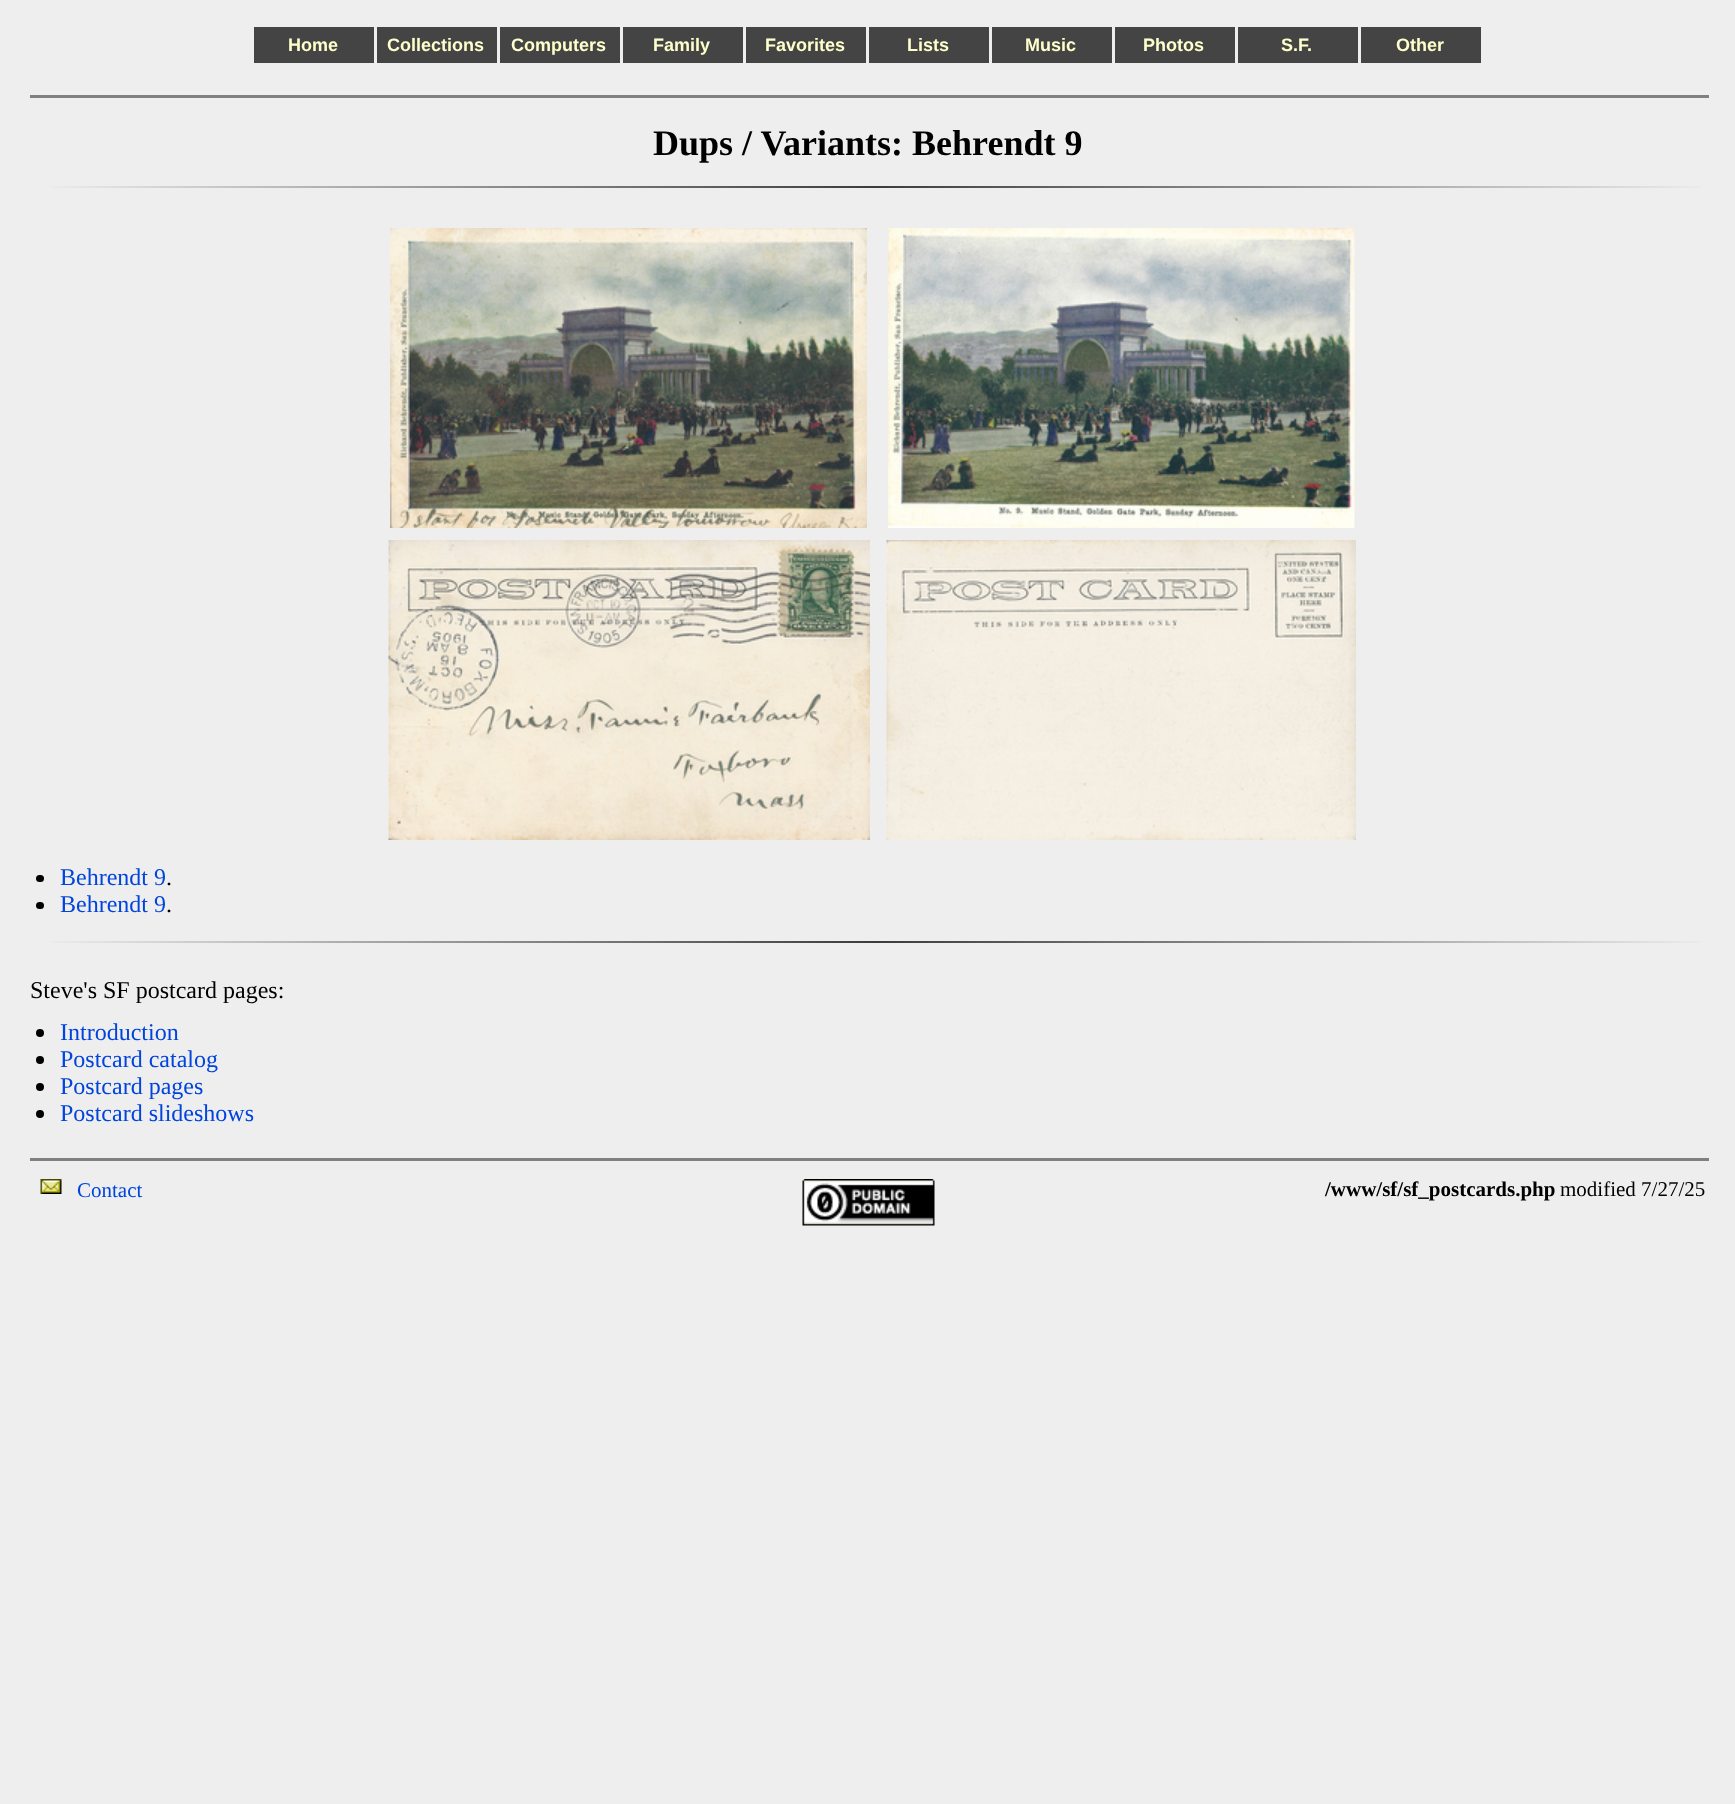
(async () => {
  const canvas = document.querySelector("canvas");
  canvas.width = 1735;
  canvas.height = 1804;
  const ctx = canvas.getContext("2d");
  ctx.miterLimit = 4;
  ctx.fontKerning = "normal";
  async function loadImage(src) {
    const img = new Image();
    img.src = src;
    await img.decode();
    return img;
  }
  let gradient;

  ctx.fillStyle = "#eeeeee";
  ctx.fillRect(0, 0, 1735, 1804);
  for (const [x, y, w, h, color] of [
    [254, 27, 120, 36, "#444444"],
    [377, 27, 120, 36, "#444444"],
    [500, 27, 120, 36, "#444444"],
    [623, 27, 120, 36, "#444444"],
    [746, 27, 120, 36, "#444444"],
    [869, 27, 120, 36, "#444444"],
    [992, 27, 120, 36, "#444444"],
    [1115, 27, 120, 36, "#444444"],
    [1238, 27, 120, 36, "#444444"],
    [1361, 27, 120, 36, "#444444"],
    [30, 95, 1679, 3, "#808080"],
  ]) {
    ctx.fillStyle = color;
    ctx.fillRect(x, y, w, h);
  }
  gradient = ctx.createLinearGradient(38, 187, 1713, 187);
  gradient.addColorStop(0, "#eeeeee");
  gradient.addColorStop(0.5, "#3c3c3c");
  gradient.addColorStop(1, "#eeeeee");
  ctx.fillStyle = gradient;
  ctx.fillRect(50, 186, 1651, 2);
  ctx.drawImage(await loadImage("img/1.png"), 390, 228, 477, 300);
  ctx.drawImage(await loadImage("img/2.png"), 888, 228, 467, 300);
  ctx.drawImage(await loadImage("img/3.png"), 388, 540, 482, 300);
  ctx.drawImage(await loadImage("img/4.png"), 886, 540, 470, 300);
  ctx.fillStyle = "#000000";
  ctx.beginPath();
  ctx.roundRect(36, 875, 8, 7, 3.5);
  ctx.fill();
  ctx.beginPath();
  ctx.roundRect(36, 902, 8, 7, 3.5);
  ctx.fill();
  gradient = ctx.createLinearGradient(38, 941, 1713, 941);
  gradient.addColorStop(0, "#eeeeee");
  gradient.addColorStop(0.5, "#3c3c3c");
  gradient.addColorStop(1, "#eeeeee");
  ctx.fillStyle = gradient;
  ctx.fillRect(50, 941, 1651, 2);
  ctx.fillStyle = "#000000";
  ctx.beginPath();
  ctx.arc(40, 1033, 4, 0, Math.PI * 2);
  ctx.fill();
  ctx.beginPath();
  ctx.arc(40, 1060, 4, 0, Math.PI * 2);
  ctx.fill();
  ctx.beginPath();
  ctx.arc(40, 1087, 4, 0, Math.PI * 2);
  ctx.fill();
  ctx.beginPath();
  ctx.arc(40, 1114, 4, 0, Math.PI * 2);
  ctx.fill();
  ctx.fillStyle = "#808080";
  ctx.fillRect(30, 1158, 1679, 3);
  ctx.drawImage(await loadImage("img/5.png"), 40, 1179, 22, 15);
  ctx.drawImage(await loadImage("img/6.png"), 802, 1179, 133, 47);
  ctx.font = "bold 18px Liberation Sans";
  ctx.fillStyle = "#ffffcc";
  for (const [text, x, y] of [
    ["Home", 288, 51],
    ["Collections", 387, 51],
    ["Computers", 511, 51],
    ["Family", 653, 51],
    ["Favorites", 765, 51],
    ["Lists", 907, 51],
    ["Music", 1025, 51],
    ["Photos", 1143, 51],
    ["S.F.", 1281, 51],
    ["Other", 1396, 51],
  ]) {
    ctx.fillText(text, x, y);
  }
  ctx.font = "bold 36px Liberation Serif";
  ctx.fillStyle = "#000000";
  ctx.fillText("Dups / Variants: Behrendt 9", 653, 155);
  ctx.font = "24px Liberation Serif";
  ctx.fillStyle = "#0044dd";
  ctx.fillText("Behrendt 9", 60, 885);
  ctx.fillStyle = "#000000";
  ctx.fillText(".", 166, 885);
  ctx.fillStyle = "#0044dd";
  ctx.fillText("Behrendt 9", 60, 912);
  ctx.fillStyle = "#000000";
  ctx.fillText(".", 166, 912);
  ctx.fillText("Steve's SF postcard pages:", 30, 998);
  ctx.fillStyle = "#0044dd";
  for (const [text, x, y] of [
    ["Introduction", 60, 1040],
    ["Postcard catalog", 60, 1067],
    ["Postcard pages", 60, 1094],
    ["Postcard slideshows", 60, 1121],
  ]) {
    ctx.fillText(text, x, y);
  }
  ctx.font = "21px Liberation Serif";
  ctx.fillText("Contact", 77, 1197);
  ctx.font = "bold 21px Liberation Serif";
  ctx.fillStyle = "#000000";
  ctx.fillText("/www/sf/sf_postcards.php", 1325, 1196);
  ctx.font = "21px Liberation Serif";
  ctx.fillText("modified 7/27/25", 1560, 1196);
})();
